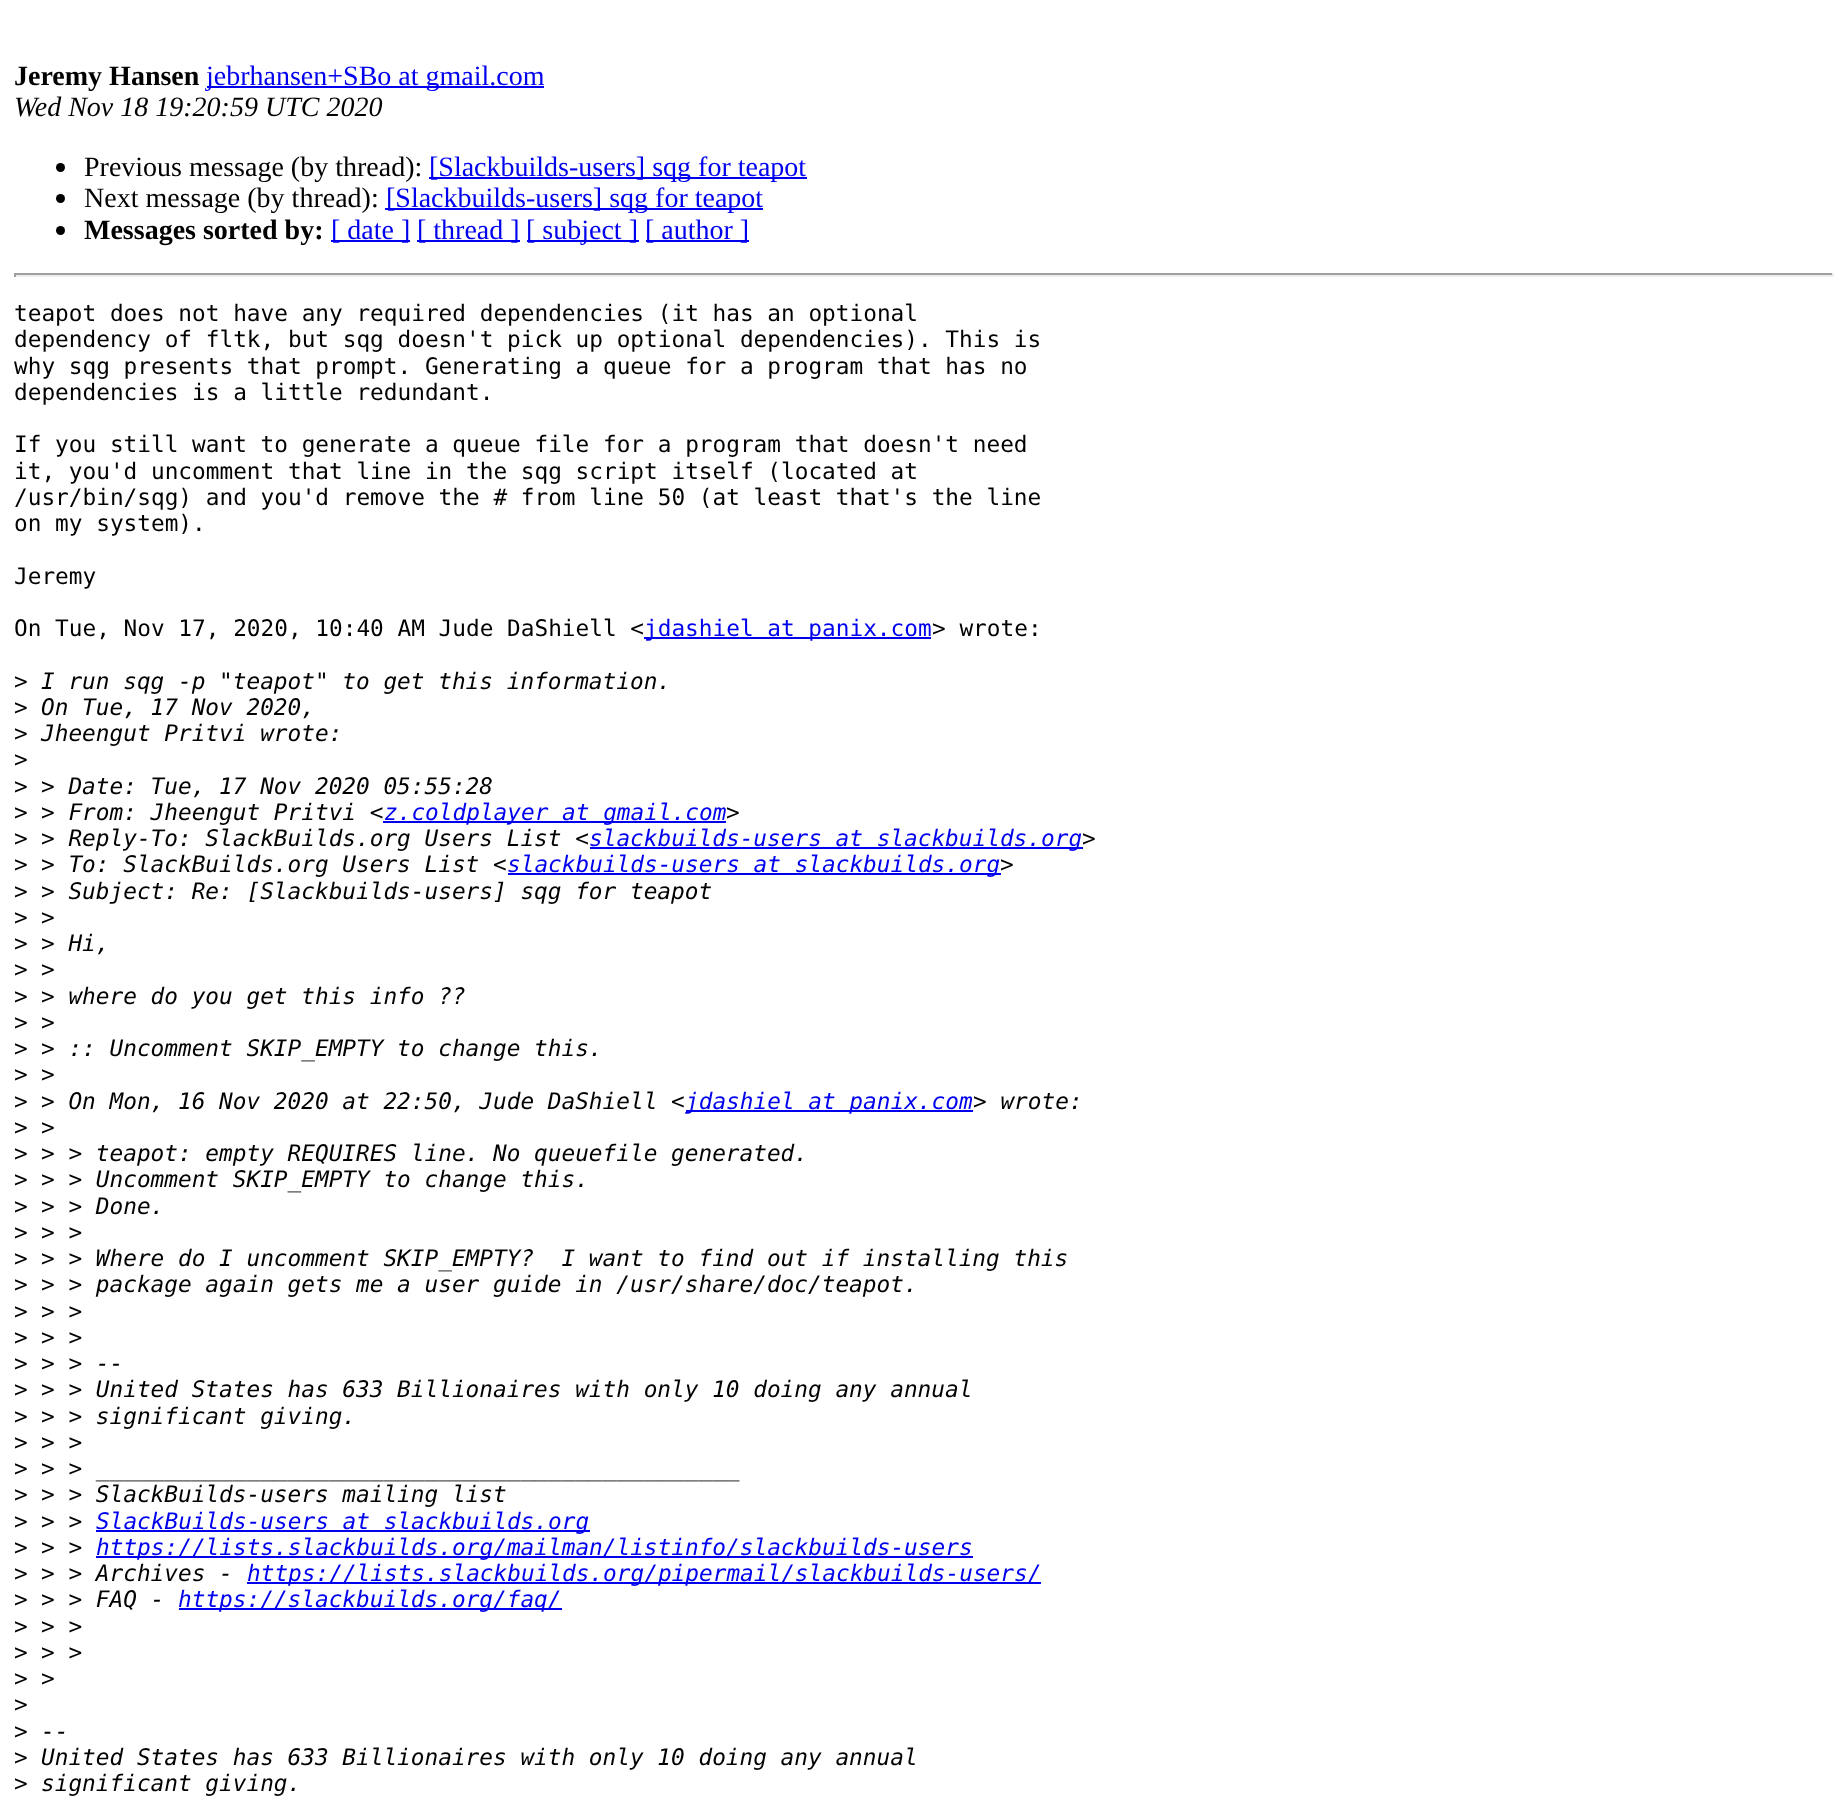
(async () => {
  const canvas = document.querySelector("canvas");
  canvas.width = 1847;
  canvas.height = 1804;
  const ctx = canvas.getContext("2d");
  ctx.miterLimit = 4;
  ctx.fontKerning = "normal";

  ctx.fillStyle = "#ffffff";
  ctx.fillRect(0, 0, 1847, 1804);
  ctx.fillStyle = "#0000ee";
  ctx.fillRect(207, 86, 337, 2);
  ctx.fillStyle = "#000000";
  ctx.beginPath();
  ctx.arc(60.5, 167.5, 4.5, 0, Math.PI * 2);
  ctx.fill();
  ctx.fillStyle = "#0000ee";
  ctx.fillRect(429, 177, 378, 2);
  ctx.fillStyle = "#000000";
  ctx.beginPath();
  ctx.arc(60.5, 198.5, 4.5, 0, Math.PI * 2);
  ctx.fill();
  ctx.fillStyle = "#0000ee";
  ctx.fillRect(385, 208, 378, 2);
  ctx.fillStyle = "#000000";
  ctx.beginPath();
  ctx.arc(60.5, 230.5, 4.5, 0, Math.PI * 2);
  ctx.fill();
  for (const [x, y, w, h, color] of [
    [331, 240, 79, 2, "#0000ee"],
    [417, 240, 103, 2, "#0000ee"],
    [527, 240, 112, 2, "#0000ee"],
    [646, 240, 103, 2, "#0000ee"],
    [14, 273, 1820, 2, "#9f9f9f"],
    [1832, 273, 2, 4, "#eeeeee"],
    [14, 275, 1820, 2, "#eeeeee"],
    [14, 273, 2, 4, "#9f9f9f"],
    [644, 637, 287, 2, "#0000ee"],
    [383, 821, 343, 2, "#0000ee"],
    [590, 847, 493, 2, "#0000ee"],
    [508, 873, 493, 2, "#0000ee"],
    [686, 1110, 287, 2, "#0000ee"],
    [96, 1530, 494, 2, "#0000ee"],
    [96, 1556, 877, 2, "#0000ee"],
    [247, 1582, 794, 2, "#0000ee"],
    [179, 1608, 383, 2, "#0000ee"],
  ]) {
    ctx.fillStyle = color;
    ctx.fillRect(x, y, w, h);
  }
  ctx.font = "bold 28px Liberation Serif";
  ctx.fillStyle = "#000000";
  ctx.fillText("Jeremy Hansen", 14, 85);
  ctx.font = "28px Liberation Serif";
  ctx.fillStyle = "#0000ee";
  ctx.fillText("jebrhansen+SBo at gmail.com", 206, 85);
  ctx.font = "italic 28px Liberation Serif";
  ctx.fillStyle = "#000000";
  ctx.fillText("Wed Nov 18 19:20:59 UTC 2020", 14, 116);
  ctx.font = "28px Liberation Serif";
  ctx.fillText("Previous message (by thread):", 84, 176);
  ctx.fillStyle = "#0000ee";
  ctx.fillText("[Slackbuilds-users] sqg for teapot", 429, 176);
  ctx.fillStyle = "#000000";
  ctx.fillText("Next message (by thread):", 84, 207);
  ctx.fillStyle = "#0000ee";
  ctx.fillText("[Slackbuilds-users] sqg for teapot", 386, 207);
  ctx.font = "bold 28px Liberation Serif";
  ctx.fillStyle = "#000000";
  ctx.fillText("Messages sorted by:", 84, 239);
  ctx.font = "28px Liberation Serif";
  ctx.fillStyle = "#0000ee";
  for (const [text, x, y] of [
    ["[ date ]", 331, 239],
    ["[ thread ]", 417, 239],
    ["[ subject ]", 526, 239],
    ["[ author ]", 645, 239],
  ]) {
    ctx.fillText(text, x, y);
  }
  ctx.font = "22.75px DejaVu Sans Mono";
  ctx.fillStyle = "#000000";
  for (const [text, x, y] of [
    ["teapot does not have any required dependencies (it has an optional", 14, 321],
    ["dependency of fltk, but sqg doesn't pick up optional dependencies). This is", 14, 347],
    ["why sqg presents that prompt. Generating a queue for a program that has no", 14, 374],
    ["dependencies is a little redundant.", 14, 400],
    ["If you still want to generate a queue file for a program that doesn't need", 14, 452],
    ["it, you'd uncomment that line in the sqg script itself (located at", 14, 479],
    ["/usr/bin/sqg) and you'd remove the # from line 50 (at least that's the line", 14, 505],
    ["on my system).", 14, 531],
    ["Jeremy", 14, 584],
    ["On Tue, Nov 17, 2020, 10:40 AM Jude DaShiell <", 14, 636],
  ]) {
    ctx.fillText(text, x, y);
  }
  ctx.fillStyle = "#0000ee";
  ctx.fillText("jdashiel at panix.com", 644, 636);
  ctx.fillStyle = "#000000";
  ctx.fillText("> wrote:", 932, 636);
  ctx.fillText(">", 14, 689);
  ctx.font = "italic 22.75px DejaVu Sans Mono";
  ctx.fillText("I run sqg -p \"teapot\" to get this information.", 41, 689);
  ctx.font = "22.75px DejaVu Sans Mono";
  ctx.fillText(">", 14, 715);
  ctx.font = "italic 22.75px DejaVu Sans Mono";
  ctx.fillText("On Tue, 17 Nov 2020,", 41, 715);
  ctx.font = "22.75px DejaVu Sans Mono";
  ctx.fillText(">", 14, 741);
  ctx.font = "italic 22.75px DejaVu Sans Mono";
  ctx.fillText("Jheengut Pritvi wrote:", 41, 741);
  ctx.font = "22.75px DejaVu Sans Mono";
  ctx.fillText(">", 14, 767);
  ctx.fillText(">", 14, 794);
  ctx.font = "italic 22.75px DejaVu Sans Mono";
  ctx.fillText("> Date: Tue, 17 Nov 2020 05:55:28", 41, 794);
  ctx.font = "22.75px DejaVu Sans Mono";
  ctx.fillText(">", 14, 820);
  ctx.font = "italic 22.75px DejaVu Sans Mono";
  ctx.fillText("> From: Jheengut Pritvi <", 41, 820);
  ctx.fillStyle = "#0000ee";
  ctx.fillText("z.coldplayer at gmail.com", 384, 820);
  ctx.fillStyle = "#000000";
  ctx.fillText(">", 726, 820);
  ctx.font = "22.75px DejaVu Sans Mono";
  ctx.fillText(">", 14, 846);
  ctx.font = "italic 22.75px DejaVu Sans Mono";
  ctx.fillText("> Reply-To: SlackBuilds.org Users List <", 41, 846);
  ctx.fillStyle = "#0000ee";
  ctx.fillText("slackbuilds-users at slackbuilds.org", 589, 846);
  ctx.fillStyle = "#000000";
  ctx.fillText(">", 1082, 846);
  ctx.font = "22.75px DejaVu Sans Mono";
  ctx.fillText(">", 14, 872);
  ctx.font = "italic 22.75px DejaVu Sans Mono";
  ctx.fillText("> To: SlackBuilds.org Users List <", 41, 872);
  ctx.fillStyle = "#0000ee";
  ctx.fillText("slackbuilds-users at slackbuilds.org", 507, 872);
  ctx.fillStyle = "#000000";
  ctx.fillText(">", 1000, 872);
  ctx.font = "22.75px DejaVu Sans Mono";
  ctx.fillText(">", 14, 899);
  ctx.font = "italic 22.75px DejaVu Sans Mono";
  ctx.fillText("> Subject: Re: [Slackbuilds-users] sqg for teapot", 41, 899);
  ctx.font = "22.75px DejaVu Sans Mono";
  ctx.fillText(">", 14, 925);
  ctx.font = "italic 22.75px DejaVu Sans Mono";
  ctx.fillText(">", 41, 925);
  ctx.font = "22.75px DejaVu Sans Mono";
  ctx.fillText(">", 14, 951);
  ctx.font = "italic 22.75px DejaVu Sans Mono";
  ctx.fillText("> Hi,", 41, 951);
  ctx.font = "22.75px DejaVu Sans Mono";
  ctx.fillText(">", 14, 977);
  ctx.font = "italic 22.75px DejaVu Sans Mono";
  ctx.fillText(">", 41, 977);
  ctx.font = "22.75px DejaVu Sans Mono";
  ctx.fillText(">", 14, 1004);
  ctx.font = "italic 22.75px DejaVu Sans Mono";
  ctx.fillText("> where do you get this info ??", 41, 1004);
  ctx.font = "22.75px DejaVu Sans Mono";
  ctx.fillText(">", 14, 1030);
  ctx.font = "italic 22.75px DejaVu Sans Mono";
  ctx.fillText(">", 41, 1030);
  ctx.font = "22.75px DejaVu Sans Mono";
  ctx.fillText(">", 14, 1056);
  ctx.font = "italic 22.75px DejaVu Sans Mono";
  ctx.fillText("> :: Uncomment SKIP_EMPTY to change this.", 41, 1056);
  ctx.font = "22.75px DejaVu Sans Mono";
  ctx.fillText(">", 14, 1082);
  ctx.font = "italic 22.75px DejaVu Sans Mono";
  ctx.fillText(">", 41, 1082);
  ctx.font = "22.75px DejaVu Sans Mono";
  ctx.fillText(">", 14, 1109);
  ctx.font = "italic 22.75px DejaVu Sans Mono";
  ctx.fillText("> On Mon, 16 Nov 2020 at 22:50, Jude DaShiell <", 41, 1109);
  ctx.fillStyle = "#0000ee";
  ctx.fillText("jdashiel at panix.com", 685, 1109);
  ctx.fillStyle = "#000000";
  ctx.fillText("> wrote:", 973, 1109);
  ctx.font = "22.75px DejaVu Sans Mono";
  ctx.fillText(">", 14, 1135);
  ctx.font = "italic 22.75px DejaVu Sans Mono";
  ctx.fillText(">", 41, 1135);
  ctx.font = "22.75px DejaVu Sans Mono";
  ctx.fillText(">", 14, 1161);
  ctx.font = "italic 22.75px DejaVu Sans Mono";
  ctx.fillText("> > teapot: empty REQUIRES line. No queuefile generated.", 41, 1161);
  ctx.font = "22.75px DejaVu Sans Mono";
  ctx.fillText(">", 14, 1187);
  ctx.font = "italic 22.75px DejaVu Sans Mono";
  ctx.fillText("> > Uncomment SKIP_EMPTY to change this.", 41, 1187);
  ctx.font = "22.75px DejaVu Sans Mono";
  ctx.fillText(">", 14, 1214);
  ctx.font = "italic 22.75px DejaVu Sans Mono";
  ctx.fillText("> > Done.", 41, 1214);
  ctx.font = "22.75px DejaVu Sans Mono";
  ctx.fillText(">", 14, 1240);
  ctx.font = "italic 22.75px DejaVu Sans Mono";
  ctx.fillText("> >", 41, 1240);
  ctx.font = "22.75px DejaVu Sans Mono";
  ctx.fillText(">", 14, 1266);
  ctx.font = "italic 22.75px DejaVu Sans Mono";
  ctx.fillText("> > Where do I uncomment SKIP_EMPTY?  I want to find out if installing this", 41, 1266);
  ctx.font = "22.75px DejaVu Sans Mono";
  ctx.fillText(">", 14, 1292);
  ctx.font = "italic 22.75px DejaVu Sans Mono";
  ctx.fillText("> > package again gets me a user guide in /usr/share/doc/teapot.", 41, 1292);
  ctx.font = "22.75px DejaVu Sans Mono";
  ctx.fillText(">", 14, 1319);
  ctx.font = "italic 22.75px DejaVu Sans Mono";
  ctx.fillText("> >", 41, 1319);
  ctx.font = "22.75px DejaVu Sans Mono";
  ctx.fillText(">", 14, 1345);
  ctx.font = "italic 22.75px DejaVu Sans Mono";
  ctx.fillText("> >", 41, 1345);
  ctx.font = "22.75px DejaVu Sans Mono";
  ctx.fillText(">", 14, 1371);
  ctx.font = "italic 22.75px DejaVu Sans Mono";
  ctx.fillText("> > --", 41, 1371);
  ctx.font = "22.75px DejaVu Sans Mono";
  ctx.fillText(">", 14, 1397);
  ctx.font = "italic 22.75px DejaVu Sans Mono";
  ctx.fillText("> > United States has 633 Billionaires with only 10 doing any annual", 41, 1397);
  ctx.font = "22.75px DejaVu Sans Mono";
  ctx.fillText(">", 14, 1424);
  ctx.font = "italic 22.75px DejaVu Sans Mono";
  ctx.fillText("> > significant giving.", 41, 1424);
  ctx.font = "22.75px DejaVu Sans Mono";
  ctx.fillText(">", 14, 1450);
  ctx.font = "italic 22.75px DejaVu Sans Mono";
  ctx.fillText("> >", 41, 1450);
  ctx.font = "22.75px DejaVu Sans Mono";
  ctx.fillText(">", 14, 1476);
  ctx.font = "italic 22.75px DejaVu Sans Mono";
  ctx.fillText("> > _______________________________________________", 41, 1476);
  ctx.font = "22.75px DejaVu Sans Mono";
  ctx.fillText(">", 14, 1502);
  ctx.font = "italic 22.75px DejaVu Sans Mono";
  ctx.fillText("> > SlackBuilds-users mailing list", 41, 1502);
  ctx.font = "22.75px DejaVu Sans Mono";
  ctx.fillText(">", 14, 1529);
  ctx.font = "italic 22.75px DejaVu Sans Mono";
  ctx.fillText("> >", 41, 1529);
  ctx.fillStyle = "#0000ee";
  ctx.fillText("SlackBuilds-users at slackbuilds.org", 96, 1529);
  ctx.font = "22.75px DejaVu Sans Mono";
  ctx.fillStyle = "#000000";
  ctx.fillText(">", 14, 1555);
  ctx.font = "italic 22.75px DejaVu Sans Mono";
  ctx.fillText("> >", 41, 1555);
  ctx.fillStyle = "#0000ee";
  ctx.fillText("https://lists.slackbuilds.org/mailman/listinfo/slackbuilds-users", 96, 1555);
  ctx.font = "22.75px DejaVu Sans Mono";
  ctx.fillStyle = "#000000";
  ctx.fillText(">", 14, 1581);
  ctx.font = "italic 22.75px DejaVu Sans Mono";
  ctx.fillText("> > Archives -", 41, 1581);
  ctx.fillStyle = "#0000ee";
  ctx.fillText("https://lists.slackbuilds.org/pipermail/slackbuilds-users/", 247, 1581);
  ctx.font = "22.75px DejaVu Sans Mono";
  ctx.fillStyle = "#000000";
  ctx.fillText(">", 14, 1607);
  ctx.font = "italic 22.75px DejaVu Sans Mono";
  ctx.fillText("> > FAQ -", 41, 1607);
  ctx.fillStyle = "#0000ee";
  ctx.fillText("https://slackbuilds.org/faq/", 178, 1607);
  ctx.font = "22.75px DejaVu Sans Mono";
  ctx.fillStyle = "#000000";
  ctx.fillText(">", 14, 1634);
  ctx.font = "italic 22.75px DejaVu Sans Mono";
  ctx.fillText("> >", 41, 1634);
  ctx.font = "22.75px DejaVu Sans Mono";
  ctx.fillText(">", 14, 1660);
  ctx.font = "italic 22.75px DejaVu Sans Mono";
  ctx.fillText("> >", 41, 1660);
  ctx.font = "22.75px DejaVu Sans Mono";
  ctx.fillText(">", 14, 1686);
  ctx.font = "italic 22.75px DejaVu Sans Mono";
  ctx.fillText(">", 41, 1686);
  ctx.font = "22.75px DejaVu Sans Mono";
  ctx.fillText(">", 14, 1712);
  ctx.fillText(">", 14, 1739);
  ctx.font = "italic 22.75px DejaVu Sans Mono";
  ctx.fillText("--", 41, 1739);
  ctx.font = "22.75px DejaVu Sans Mono";
  ctx.fillText(">", 14, 1765);
  ctx.font = "italic 22.75px DejaVu Sans Mono";
  ctx.fillText("United States has 633 Billionaires with only 10 doing any annual", 41, 1765);
  ctx.font = "22.75px DejaVu Sans Mono";
  ctx.fillText(">", 14, 1791);
  ctx.font = "italic 22.75px DejaVu Sans Mono";
  ctx.fillText("significant giving.", 41, 1791);
})();
